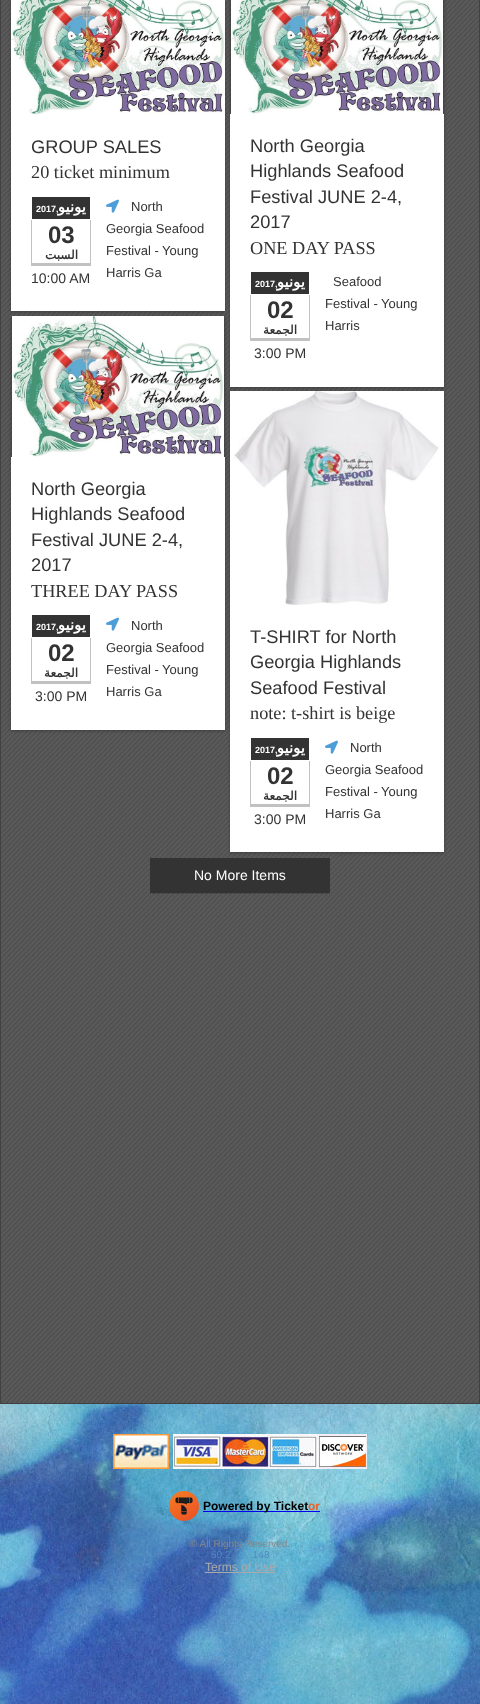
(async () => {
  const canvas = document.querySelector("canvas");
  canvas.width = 480;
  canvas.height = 1704;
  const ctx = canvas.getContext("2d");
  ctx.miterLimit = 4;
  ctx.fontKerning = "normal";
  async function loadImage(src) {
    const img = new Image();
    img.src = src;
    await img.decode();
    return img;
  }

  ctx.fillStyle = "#ffffff";
  ctx.fillRect(0, 0, 480, 1704);
  ctx.drawImage(await loadImage("img/1.png"), 0, 1404, 480, 300);
  ctx.drawImage(await loadImage("img/2.png"), 1, 0, 478, 1403);
  ctx.strokeStyle = "#414141";
  ctx.strokeRect(0.5, -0.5, 479, 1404);
  ctx.fillStyle = "rgba(34, 25, 25, 0.4)";
  ctx.filter = "blur(1.5px)";
  ctx.beginPath();
  ctx.rect(11, -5, 214, 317);
  ctx.fill();
  ctx.filter = "none";
  ctx.drawImage(await loadImage("img/3.png"), 11, 0, 214, 115);
  for (const [x, y, w, h, color] of [
    [11, 115, 214, 196, "#ffffff"],
    [32, 197, 58, 22, "#333333"],
    [90, 220, 1, 46, "#c1c1c1"],
    [31, 263, 60, 3, "#c1c1c1"],
    [31, 220, 1, 46, "#c1c1c1"],
  ]) {
    ctx.fillStyle = color;
    ctx.fillRect(x, y, w, h);
  }
  ctx.drawImage(await loadImage("img/4.png"), 106, 199, 13, 14);
  ctx.fillStyle = "rgba(34, 25, 25, 0.4)";
  ctx.filter = "blur(1.5px)";
  ctx.beginPath();
  ctx.rect(230, -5, 214, 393);
  ctx.fill();
  ctx.filter = "none";
  ctx.drawImage(await loadImage("img/5.png"), 231, 0, 212, 114);
  for (const [x, y, w, h, color] of [
    [230, 114, 214, 273, "#ffffff"],
    [251, 272, 58, 22, "#333333"],
    [309, 295, 1, 46, "#c1c1c1"],
    [250, 338, 60, 3, "#c1c1c1"],
    [250, 295, 1, 46, "#c1c1c1"],
  ]) {
    ctx.fillStyle = color;
    ctx.fillRect(x, y, w, h);
  }
  ctx.fillStyle = "rgba(34, 25, 25, 0.4)";
  ctx.filter = "blur(1.5px)";
  ctx.beginPath();
  ctx.rect(11, 317, 214, 414);
  ctx.fill();
  ctx.filter = "none";
  ctx.drawImage(await loadImage("img/6.png"), 12, 316, 212, 141);
  for (const [x, y, w, h, color] of [
    [11, 457, 214, 273, "#ffffff"],
    [32, 615, 58, 22, "#333333"],
    [90, 638, 1, 46, "#c1c1c1"],
    [31, 681, 60, 3, "#c1c1c1"],
    [31, 638, 1, 46, "#c1c1c1"],
  ]) {
    ctx.fillStyle = color;
    ctx.fillRect(x, y, w, h);
  }
  ctx.drawImage(await loadImage("img/4.png"), 106, 617, 13, 14);
  ctx.fillStyle = "rgba(34, 25, 25, 0.2)";
  ctx.filter = "blur(0.5px)";
  ctx.beginPath();
  ctx.rect(150, 859, 180, 35);
  ctx.fill();
  ctx.filter = "none";
  ctx.fillStyle = "#333333";
  ctx.fillRect(150, 858, 180, 35);
  ctx.fillStyle = "rgba(34, 25, 25, 0.4)";
  ctx.filter = "blur(1.5px)";
  ctx.beginPath();
  ctx.rect(230, 392, 214, 461);
  ctx.fill();
  ctx.filter = "none";
  ctx.drawImage(await loadImage("img/7.png"), 230, 391, 214, 214);
  for (const [x, y, w, h, color] of [
    [230, 605, 214, 247, "#ffffff"],
    [251, 738, 58, 22, "#333333"],
    [309, 761, 1, 46, "#c1c1c1"],
    [250, 804, 60, 3, "#c1c1c1"],
    [250, 761, 1, 46, "#c1c1c1"],
  ]) {
    ctx.fillStyle = color;
    ctx.fillRect(x, y, w, h);
  }
  ctx.drawImage(await loadImage("img/4.png"), 325, 740, 13, 14);
  ctx.drawImage(await loadImage("img/8.png"), 113, 1434, 56, 35);
  ctx.drawImage(await loadImage("img/9.png"), 173, 1434, 194, 35);
  ctx.drawImage(await loadImage("img/10.png"), 169, 1491, 30, 30);
  ctx.fillStyle = "#0000ee";
  ctx.fillRect(203, 1511, 117, 1);
  ctx.fillStyle = "#aaaaaa";
  ctx.fillRect(205, 1572, 70, 1);
  ctx.font = "18.25px Liberation Sans";
  ctx.fillStyle = "#333333";
  ctx.fillText("GROUP SALES", 31, 153);
  ctx.font = "18.25px Liberation Serif";
  ctx.fillText("20 ticket minimum", 31, 178);
  ctx.direction = "rtl";
  ctx.font = "bold 15px DejaVu Sans";
  ctx.fillStyle = "#ffffff";
  ctx.fillText("يونيو", 86, 212);
  ctx.direction = "ltr";
  ctx.font = "bold 9px Liberation Sans";
  ctx.fillText("2017,", 36, 212);
  ctx.font = "bold 24px Liberation Sans";
  ctx.fillStyle = "#333333";
  ctx.fillText("03", 48, 243);
  ctx.direction = "rtl";
  ctx.font = "bold 12px DejaVu Sans";
  ctx.fillText("السبت", 78, 259);
  ctx.direction = "ltr";
  ctx.font = "14px Liberation Sans";
  ctx.fillText("10:00 AM", 31, 283);
  ctx.font = "13px Liberation Sans";
  for (const [text, x, y] of [
    ["North", 131, 211],
    ["Georgia Seafood", 106, 233],
    ["Festival - Young", 106, 255],
    ["Harris Ga", 106, 277],
  ]) {
    ctx.fillText(text, x, y);
  }
  ctx.font = "18.25px Liberation Sans";
  for (const [text, x, y] of [
    ["North Georgia", 250, 152],
    ["Highlands Seafood", 250, 177],
    ["Festival JUNE 2-4,", 250, 203],
    ["2017", 250, 228],
  ]) {
    ctx.fillText(text, x, y);
  }
  ctx.font = "18.25px Liberation Serif";
  ctx.fillText("ONE DAY PASS", 250, 254);
  ctx.direction = "rtl";
  ctx.font = "bold 15px DejaVu Sans";
  ctx.fillStyle = "#ffffff";
  ctx.fillText("يونيو", 305, 287);
  ctx.direction = "ltr";
  ctx.font = "bold 9px Liberation Sans";
  ctx.fillText("2017,", 255, 287);
  ctx.font = "bold 24px Liberation Sans";
  ctx.fillStyle = "#333333";
  ctx.fillText("02", 267, 318);
  ctx.direction = "rtl";
  ctx.font = "bold 12px DejaVu Sans";
  ctx.fillText("الجمعة", 297, 334);
  ctx.direction = "ltr";
  ctx.font = "14px Liberation Sans";
  ctx.fillText("3:00 PM", 254, 358);
  ctx.font = "13px Liberation Sans";
  for (const [text, x, y] of [
    ["Seafood", 333, 286],
    ["Festival - Young", 325, 308],
    ["Harris", 325, 330],
  ]) {
    ctx.fillText(text, x, y);
  }
  ctx.font = "18.25px Liberation Sans";
  for (const [text, x, y] of [
    ["North Georgia", 31, 495],
    ["Highlands Seafood", 31, 520],
    ["Festival JUNE 2-4,", 31, 546],
    ["2017", 31, 571],
  ]) {
    ctx.fillText(text, x, y);
  }
  ctx.font = "18.25px Liberation Serif";
  ctx.fillText("THREE DAY PASS", 31, 597);
  ctx.direction = "rtl";
  ctx.font = "bold 15px DejaVu Sans";
  ctx.fillStyle = "#ffffff";
  ctx.fillText("يونيو", 86, 630);
  ctx.direction = "ltr";
  ctx.font = "bold 9px Liberation Sans";
  ctx.fillText("2017,", 36, 630);
  ctx.font = "bold 24px Liberation Sans";
  ctx.fillStyle = "#333333";
  ctx.fillText("02", 48, 661);
  ctx.direction = "rtl";
  ctx.font = "bold 12px DejaVu Sans";
  ctx.fillText("الجمعة", 78, 677);
  ctx.direction = "ltr";
  ctx.font = "14px Liberation Sans";
  ctx.fillText("3:00 PM", 35, 701);
  ctx.font = "13px Liberation Sans";
  for (const [text, x, y] of [
    ["North", 131, 630],
    ["Georgia Seafood", 106, 652],
    ["Festival - Young", 106, 674],
    ["Harris Ga", 106, 696],
  ]) {
    ctx.fillText(text, x, y);
  }
  ctx.font = "18.25px Liberation Sans";
  for (const [text, x, y] of [
    ["T-SHIRT for North", 250, 643],
    ["Georgia Highlands", 250, 668],
    ["Seafood Festival", 250, 694],
  ]) {
    ctx.fillText(text, x, y);
  }
  ctx.font = "18.25px Liberation Serif";
  ctx.fillText("note: t-shirt is beige", 250, 719);
  ctx.direction = "rtl";
  ctx.font = "bold 15px DejaVu Sans";
  ctx.fillStyle = "#ffffff";
  ctx.fillText("يونيو", 305, 753);
  ctx.direction = "ltr";
  ctx.font = "bold 9px Liberation Sans";
  ctx.fillText("2017,", 255, 753);
  ctx.font = "bold 24px Liberation Sans";
  ctx.fillStyle = "#333333";
  ctx.fillText("02", 267, 784);
  ctx.direction = "rtl";
  ctx.font = "bold 12px DejaVu Sans";
  ctx.fillText("الجمعة", 297, 800);
  ctx.direction = "ltr";
  ctx.font = "14px Liberation Sans";
  ctx.fillText("3:00 PM", 254, 824);
  ctx.font = "13px Liberation Sans";
  for (const [text, x, y] of [
    ["North", 350, 752],
    ["Georgia Seafood", 325, 774],
    ["Festival - Young", 325, 796],
    ["Harris Ga", 325, 818],
  ]) {
    ctx.fillText(text, x, y);
  }
  ctx.font = "14px Liberation Sans";
  ctx.fillStyle = "#ffffff";
  ctx.fillText("No More Items", 194, 880);
  ctx.font = "bold 12px Liberation Sans";
  ctx.fillStyle = "#000000";
  ctx.fillText("Powered by Ticket", 203, 1510);
  ctx.fillStyle = "#ed612b";
  ctx.fillText("or", 308, 1510);
  ctx.font = "10px Liberation Sans";
  ctx.fillStyle = "#888888";
  ctx.fillText("© All Rights Reserved.", 190, 1547);
  ctx.fillStyle = "#4f8abe";
  ctx.fillText("50.2", 211, 1558);
  ctx.fillText(".148", 250, 1558);
  ctx.font = "12px Liberation Sans";
  ctx.fillStyle = "#aaaaaa";
  ctx.fillText("Terms of Use", 205, 1571);
})();
